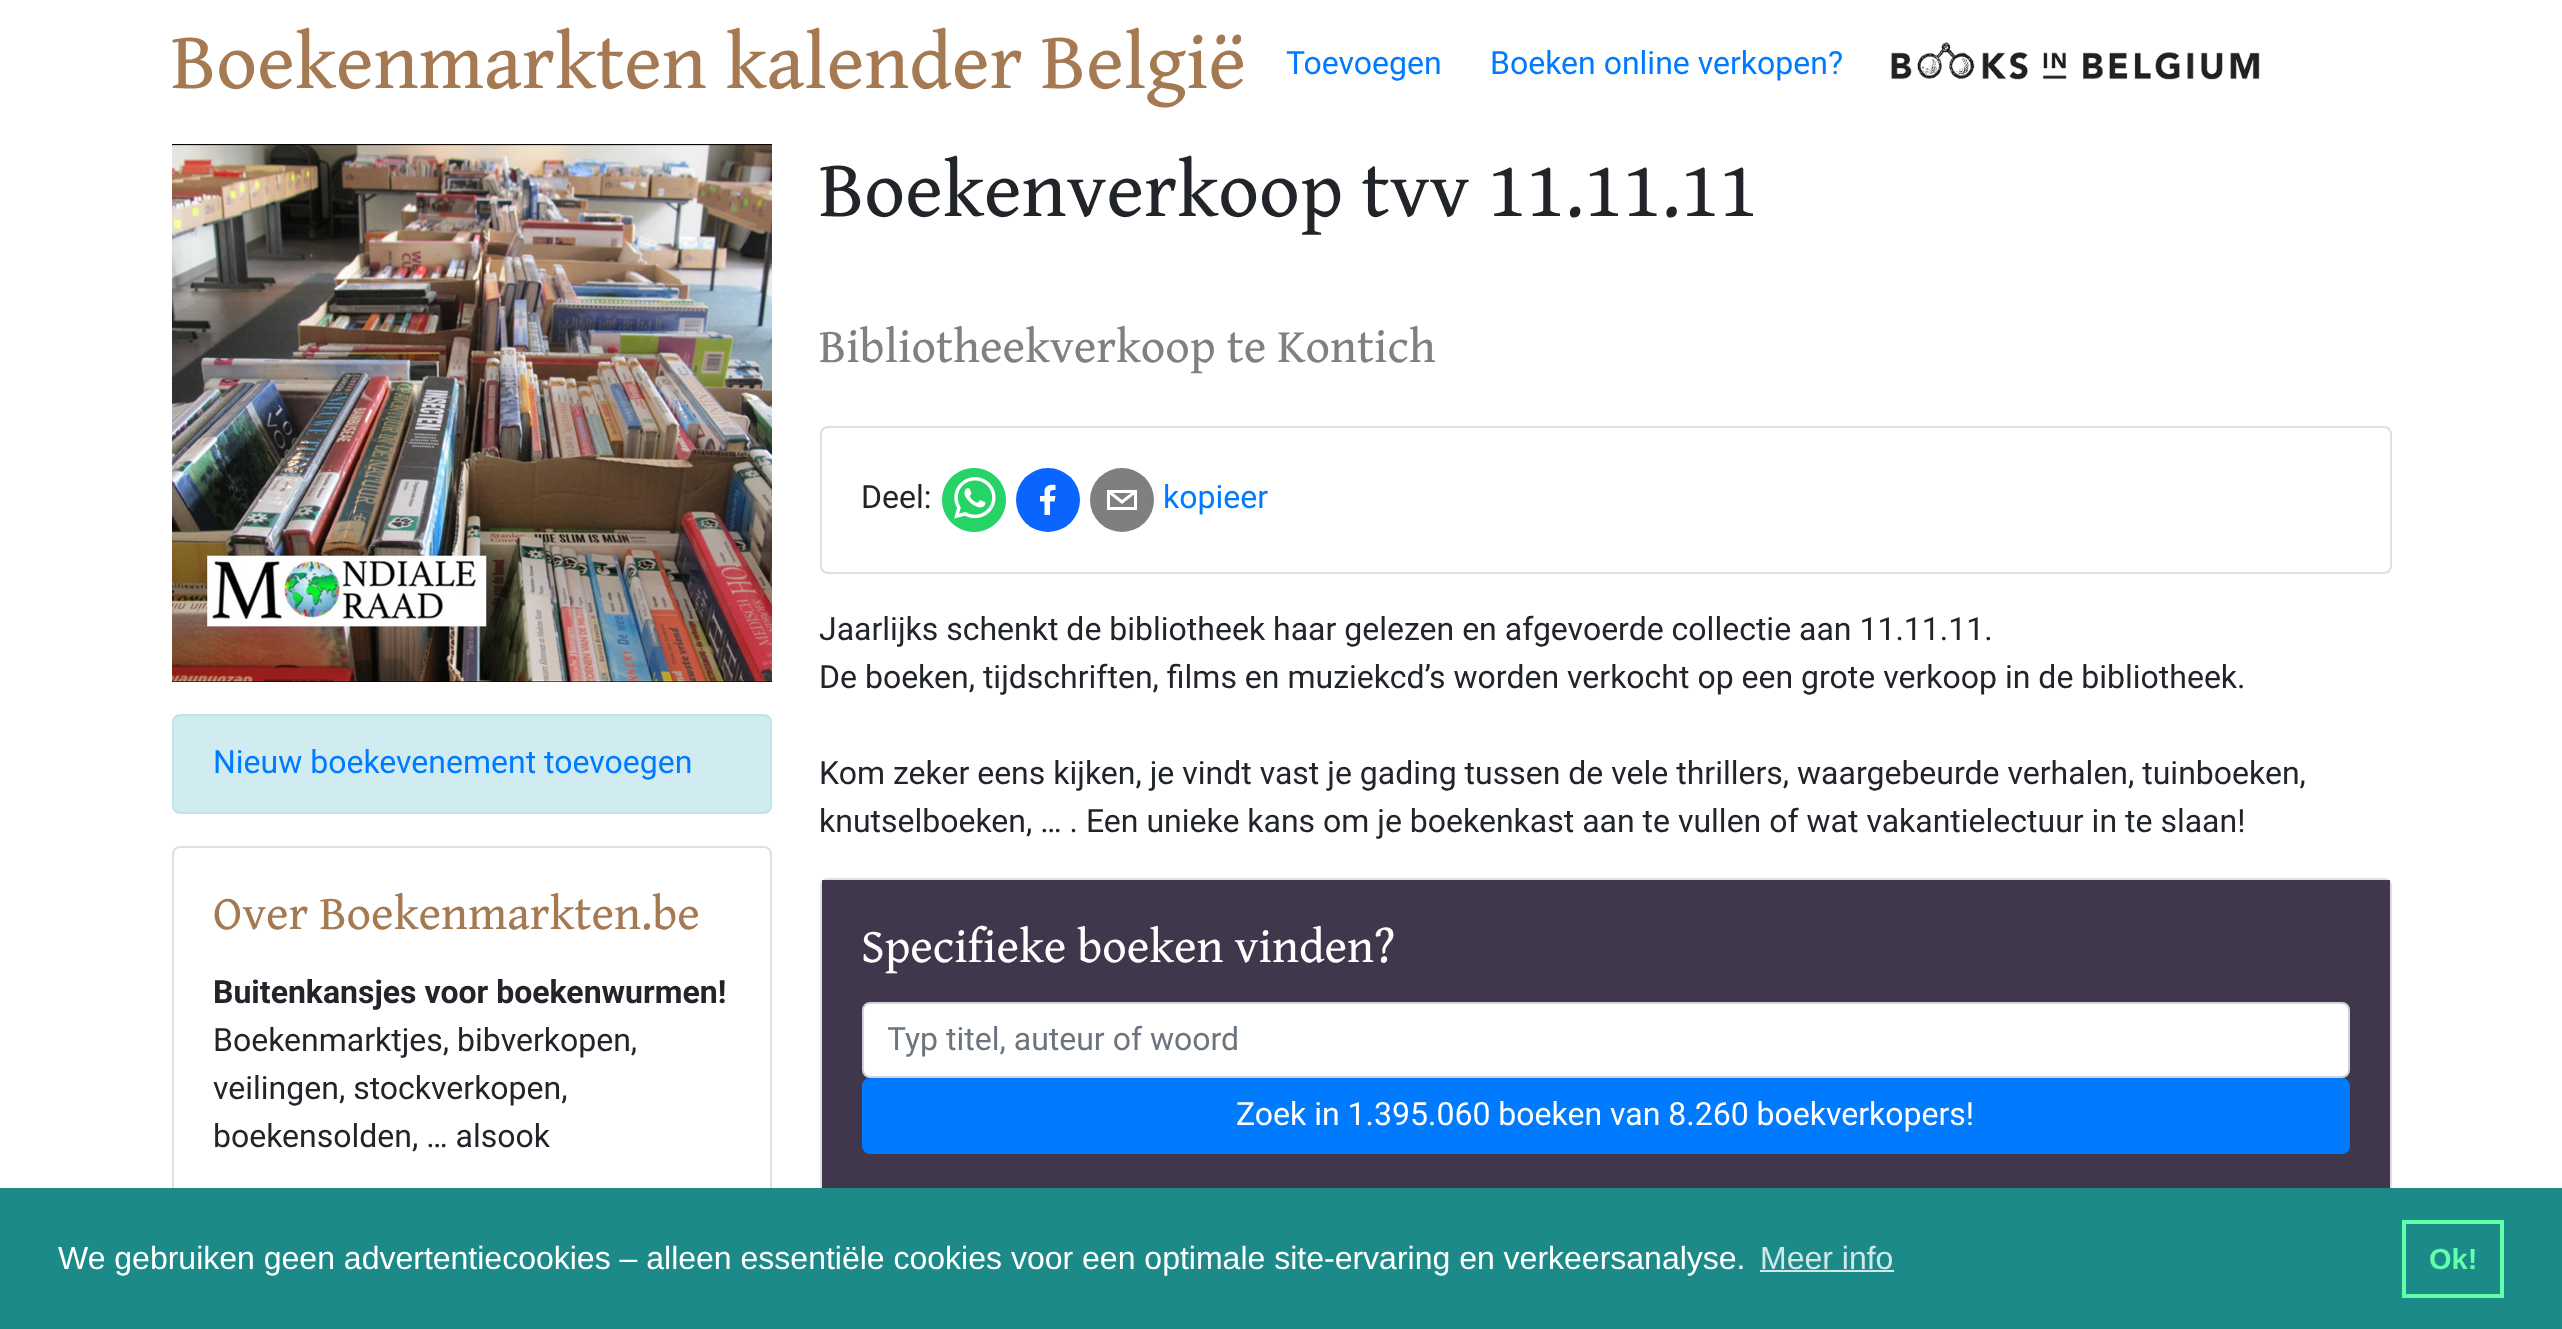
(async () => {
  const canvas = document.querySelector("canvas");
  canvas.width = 2562;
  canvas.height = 1329;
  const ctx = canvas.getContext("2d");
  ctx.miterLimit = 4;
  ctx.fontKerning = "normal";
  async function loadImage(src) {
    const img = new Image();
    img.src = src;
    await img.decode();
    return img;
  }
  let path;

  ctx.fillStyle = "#ffffff";
  ctx.fillRect(0, 0, 2562, 1329);
  ctx.drawImage(await loadImage("img/1.png"), 1891, 42, 369, 38);
  ctx.drawImage(await loadImage("img/2.png"), 172, 144, 600, 538);
  ctx.fillStyle = "#d1ecf1";
  ctx.beginPath();
  ctx.roundRect(173, 715, 598, 98, 7);
  ctx.fill();
  ctx.strokeStyle = "#bee5eb";
  ctx.lineWidth = 2;
  ctx.stroke();
  ctx.beginPath();
  ctx.roundRect(173, 847, 598, 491, 7);
  ctx.strokeStyle = "#dfdfdf";
  ctx.stroke();
  ctx.beginPath();
  ctx.roundRect(821, 427, 1570, 146, 7);
  ctx.stroke();
  ctx.drawImage(await loadImage("img/3.png"), 942, 468, 64, 64);
  ctx.fillStyle = "#0965fe";
  ctx.beginPath();
  ctx.arc(1048, 500, 32, 0, Math.PI * 2);
  ctx.fill();
  ctx.fillStyle = "#ffffff";
  path = new Path2D("M1050 515V501.5H1054.5L1055.5 496H1050C1050 490.5 1049.5 490 1055.5 490V485C1051 484.5 1045.5 485 1044.5 490.5V496H1040V501.5H1044.5V515Z");
  ctx.fill(path);
  ctx.fillStyle = "#7f7f7f";
  ctx.beginPath();
  ctx.arc(1122, 500, 32, 0, Math.PI * 2);
  ctx.fill();
  ctx.fillStyle = "#ffffff";
  path = new Path2D("M1107 490V510H1137V490ZM1131 493L1122 500L1113 493ZM1110 507V494.5L1122 504L1134 494.5V507Z");
  ctx.fill(path);
  ctx.beginPath();
  ctx.roundRect(821, 879, 1570, 316, 7);
  ctx.stroke();
  ctx.fillStyle = "#41374c";
  ctx.fillRect(822, 880, 1568, 308);
  ctx.fillStyle = "#ffffff";
  ctx.beginPath();
  ctx.roundRect(863, 1003, 1486, 74, 7);
  ctx.fill();
  ctx.strokeStyle = "#ced4da";
  ctx.stroke();
  ctx.fillStyle = "#007bff";
  ctx.beginPath();
  ctx.roundRect(863, 1079, 1486, 74, 7);
  ctx.fill();
  ctx.strokeStyle = "#007bff";
  ctx.stroke();
  ctx.fillStyle = "#1d8a8a";
  ctx.fillRect(0, 1188, 2562, 141);
  ctx.fillStyle = "#d2e8e8";
  ctx.fillRect(1760, 1270, 134, 2);
  ctx.strokeStyle = "#62ffaa";
  ctx.lineWidth = 4;
  ctx.strokeRect(2404, 1222, 98, 74);
  ctx.font = "80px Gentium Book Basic";
  ctx.fillStyle = "#a57952";
  ctx.fillText("Boekenmarkten kalender België", 171, 88);
  ctx.font = "32px Roboto";
  ctx.fillStyle = "#007bff";
  for (const [text, x, y] of [
    ["Toevoegen", 1286, 74],
    ["Boeken online verkopen?", 1490, 74],
    ["Nieuw boekevenement toevoegen", 213, 773],
  ]) {
    ctx.fillText(text, x, y);
  }
  ctx.font = "48px Gentium Book Basic";
  ctx.fillStyle = "#a57952";
  ctx.fillText("Over Boekenmarkten.be", 213, 929);
  ctx.font = "bold 32px Roboto";
  ctx.fillStyle = "#212529";
  ctx.fillText("Buitenkansjes voor boekenwurmen!", 213, 1003);
  ctx.font = "32px Roboto";
  for (const [text, x, y] of [
    ["Boekenmarktjes, bibverkopen,", 213, 1051],
    ["veilingen, stockverkopen,", 213, 1099],
    ["boekensolden, … alsook", 213, 1147],
  ]) {
    ctx.fillText(text, x, y);
  }
  ctx.font = "80px Gentium Book Basic";
  ctx.fillText("Boekenverkoop tvv 11.11.11", 819, 216);
  ctx.font = "48px Gentium Book Basic";
  ctx.fillStyle = "#808080";
  ctx.fillText("Bibliotheekverkoop te Kontich", 819, 362);
  ctx.font = "32px Roboto";
  ctx.fillStyle = "#212529";
  ctx.fillText("Deel:", 861, 508);
  ctx.fillStyle = "#007bff";
  ctx.fillText("kopieer", 1163, 508);
  ctx.fillStyle = "#212529";
  for (const [text, x, y] of [
    ["Jaarlijks schenkt de bibliotheek haar gelezen en afgevoerde collectie aan 11.11.11.", 819, 640],
    ["De boeken, tijdschriften, films en muziekcd’s worden verkocht op een grote verkoop in de bibliotheek.", 819, 688],
    ["Kom zeker eens kijken, je vindt vast je gading tussen de vele thrillers, waargebeurde verhalen, tuinboeken,", 819, 784],
    ["knutselboeken, … . Een unieke kans om je boekenkast aan te vullen of wat vakantielectuur in te slaan!", 819, 832],
  ]) {
    ctx.fillText(text, x, y);
  }
  ctx.font = "48px Gentium Book Basic";
  ctx.fillStyle = "#ffffff";
  ctx.fillText("Specifieke boeken vinden?", 861, 962);
  ctx.save();
  ctx.beginPath();
  ctx.rect(888, 1020, 1436, 38);
  ctx.clip();
  ctx.font = "32px Roboto";
  ctx.fillStyle = "#6c757d";
  ctx.fillText("Typ titel, auteur of woord", 887, 1050);
  ctx.restore();
  ctx.font = "32px Roboto";
  ctx.fillText("Zoek in 1.395.060 boeken van 8.260 boekverkopers!", 1236, 1125);
  ctx.font = "32px Liberation Sans";
  ctx.fillText("We gebruiken geen advertentiecookies – alleen essentiële cookies voor een optimale site-ervaring en verkeersanalyse.", 58, 1269);
  ctx.fillStyle = "#d2e8e8";
  ctx.fillText("Meer info", 1760, 1269);
  ctx.font = "bold 29px Liberation Sans";
  ctx.fillStyle = "#62ffaa";
  ctx.fillText("Ok!", 2429, 1269);
})();
